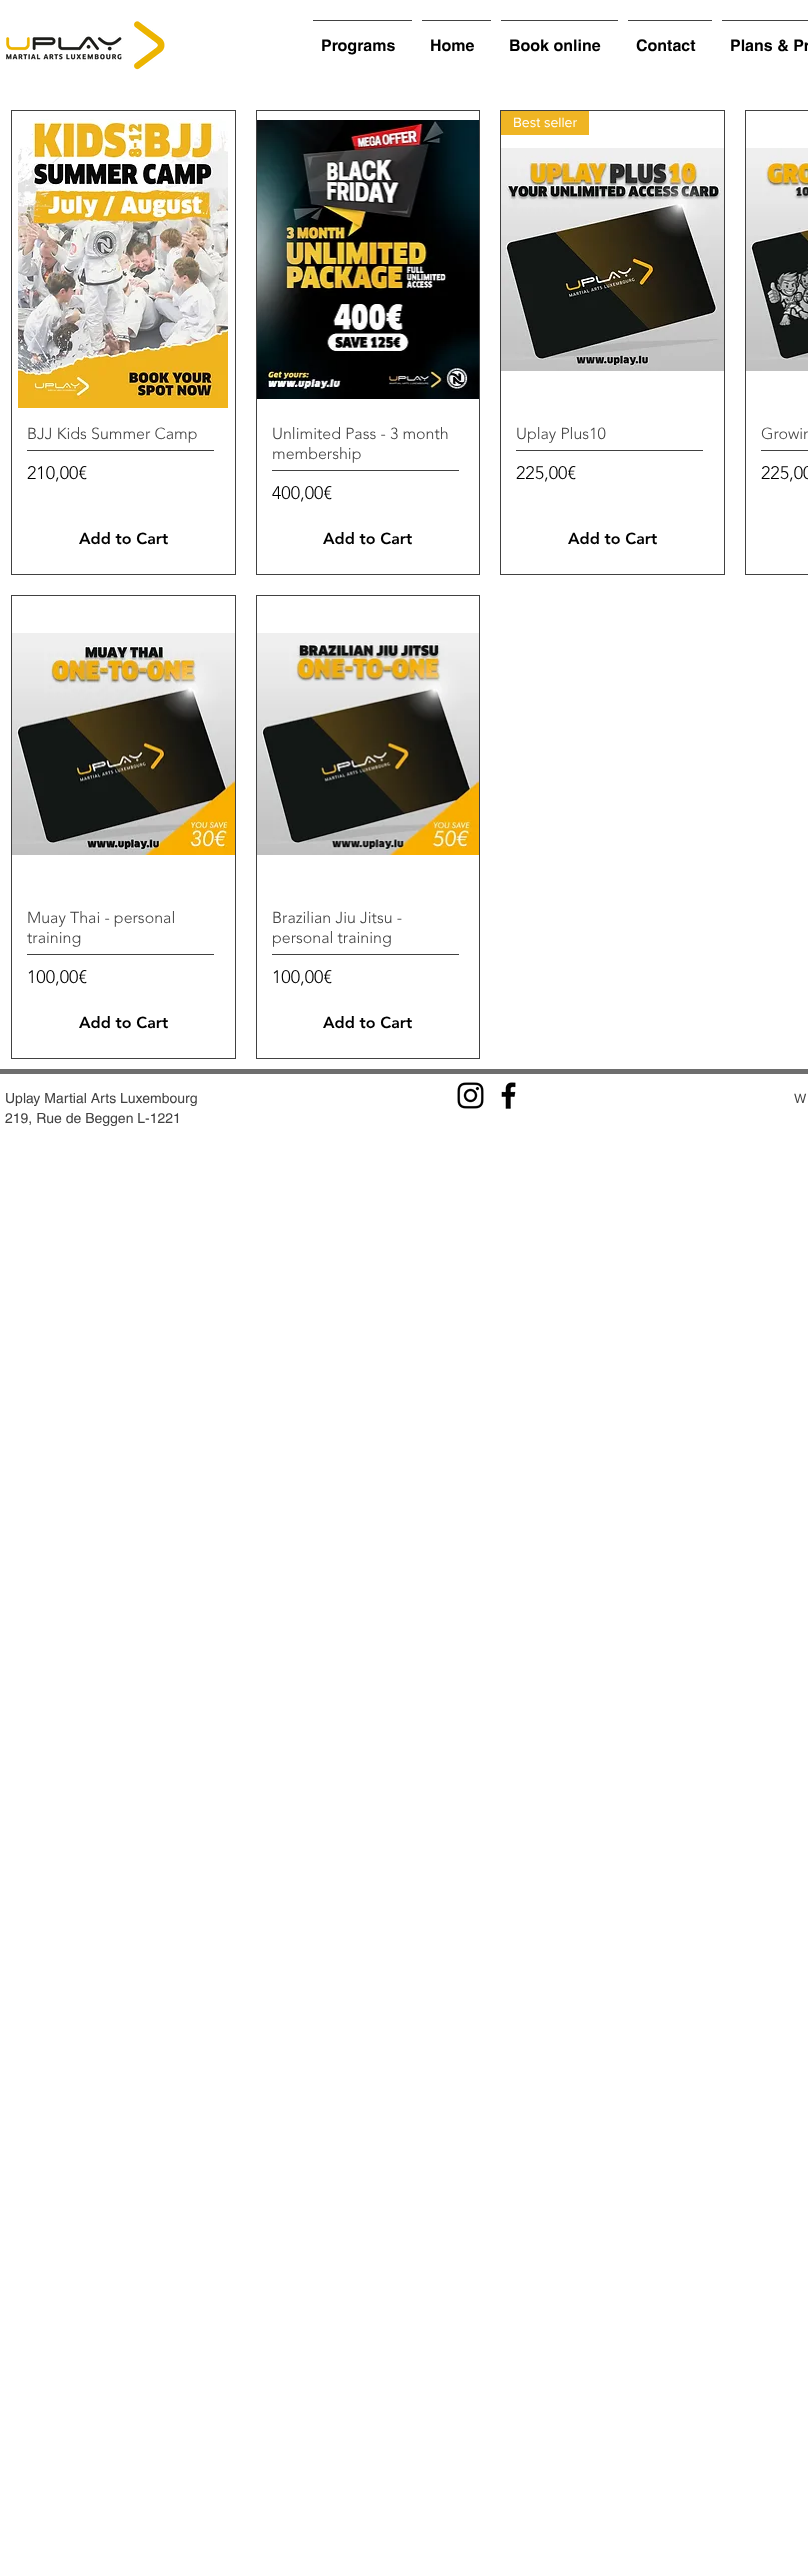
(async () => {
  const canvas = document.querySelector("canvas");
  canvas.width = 808;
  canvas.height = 2550;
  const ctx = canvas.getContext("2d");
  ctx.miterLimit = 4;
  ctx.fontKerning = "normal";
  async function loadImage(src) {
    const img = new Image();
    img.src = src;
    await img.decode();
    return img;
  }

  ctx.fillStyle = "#ffffff";
  ctx.fillRect(0, 0, 808, 2550);
  ctx.drawImage(await loadImage("img/1.png"), 6, 21, 159, 49);
  for (const [x, y, w, h, color] of [
    [313, 20, 99, 1, "#414141"],
    [422, 20, 69, 1, "#414141"],
    [501, 20, 117, 1, "#414141"],
    [628, 20, 84, 1, "#414141"],
    [722, 20, 86, 1, "#414141"],
  ]) {
    ctx.fillStyle = color;
    ctx.fillRect(x, y, w, h);
  }
  ctx.strokeStyle = "#414141";
  ctx.strokeRect(11.5, 110.5, 224, 464);
  ctx.drawImage(await loadImage("img/2.png"), 18, 119, 210, 289);
  ctx.fillRect(27, 450, 187, 1);
  ctx.strokeRect(256.5, 110.5, 223, 464);
  ctx.drawImage(await loadImage("img/3.png"), 257, 120, 222, 279);
  ctx.fillRect(272, 470, 187, 1);
  ctx.strokeRect(500.5, 110.5, 224, 464);
  ctx.fillStyle = "#efb524";
  ctx.fillRect(501, 111, 88, 24);
  ctx.drawImage(await loadImage("img/4.png"), 501, 148, 223, 223);
  ctx.fillStyle = "#414141";
  ctx.fillRect(516, 450, 187, 1);
  ctx.strokeRect(745.5, 110.5, 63, 464);
  ctx.drawImage(await loadImage("img/5.png"), 746, 148, 62, 223);
  ctx.fillRect(761, 450, 47, 1);
  ctx.strokeRect(11.5, 595.5, 224, 463);
  ctx.drawImage(await loadImage("img/6.png"), 12, 633, 223, 222);
  ctx.fillRect(27, 954, 187, 1);
  ctx.strokeRect(256.5, 595.5, 223, 463);
  ctx.drawImage(await loadImage("img/7.png"), 257, 633, 222, 222);
  ctx.fillRect(272, 954, 187, 1);
  ctx.fillStyle = "#6e6e6e";
  ctx.fillRect(0, 1069, 808, 5);
  ctx.drawImage(await loadImage("img/8.png"), 457, 1082, 27, 27);
  ctx.drawImage(await loadImage("img/9.png"), 501, 1082, 15, 27);
  ctx.font = "bold 16px helvetica";
  ctx.fillStyle = "#000000";
  for (const [text, x, y] of [
    ["Programs", 321, 51],
    ["Home", 430, 51],
    ["Book online", 509, 51],
    ["Contact", 636, 51],
    ["Plans & Pr", 730, 51],
  ]) {
    ctx.fillText(text, x, y);
  }
  ctx.font = "300 16px 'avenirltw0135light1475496'";
  ctx.fillStyle = "#414141";
  ctx.fillText("BJJ Kids Summer Camp", 27, 439);
  ctx.font = "300 18px 'avenirltw0135light1475496'";
  ctx.fillStyle = "#000000";
  ctx.fillText("210,00€", 27, 479);
  ctx.font = "900 16px 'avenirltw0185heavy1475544'";
  ctx.fillText("Add to Cart", 79, 544);
  ctx.font = "300 16px 'avenirltw0135light1475496'";
  ctx.fillStyle = "#414141";
  ctx.fillText("Unlimited Pass - 3 month", 272, 439);
  ctx.fillText("membership", 272, 459);
  ctx.font = "300 18px 'avenirltw0135light1475496'";
  ctx.fillStyle = "#000000";
  ctx.fillText("400,00€", 272, 499);
  ctx.font = "900 16px 'avenirltw0185heavy1475544'";
  ctx.fillText("Add to Cart", 323, 544);
  ctx.font = "14px 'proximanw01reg'";
  ctx.fillStyle = "#ffffff";
  ctx.fillText("Best seller", 513, 127);
  ctx.font = "300 16px 'avenirltw0135light1475496'";
  ctx.fillStyle = "#414141";
  ctx.fillText("Uplay Plus10", 516, 439);
  ctx.font = "300 18px 'avenirltw0135light1475496'";
  ctx.fillStyle = "#000000";
  ctx.fillText("225,00€", 516, 479);
  ctx.font = "900 16px 'avenirltw0185heavy1475544'";
  ctx.fillText("Add to Cart", 568, 544);
  ctx.font = "300 16px 'avenirltw0135light1475496'";
  ctx.fillStyle = "#414141";
  ctx.fillText("Growin", 761, 439);
  ctx.font = "300 18px 'avenirltw0135light1475496'";
  ctx.fillStyle = "#000000";
  ctx.fillText("225,00", 761, 479);
  ctx.font = "300 16px 'avenirltw0135light1475496'";
  ctx.fillStyle = "#414141";
  ctx.fillText("Muay Thai - personal", 27, 923);
  ctx.fillText("training", 27, 943);
  ctx.font = "300 18px 'avenirltw0135light1475496'";
  ctx.fillStyle = "#000000";
  ctx.fillText("100,00€", 27, 983);
  ctx.font = "900 16px 'avenirltw0185heavy1475544'";
  ctx.fillText("Add to Cart", 79, 1028);
  ctx.font = "300 16px 'avenirltw0135light1475496'";
  ctx.fillStyle = "#414141";
  ctx.fillText("Brazilian Jiu Jitsu -", 272, 923);
  ctx.fillText("personal training", 272, 943);
  ctx.font = "300 18px 'avenirltw0135light1475496'";
  ctx.fillStyle = "#000000";
  ctx.fillText("100,00€", 272, 983);
  ctx.font = "900 16px 'avenirltw0185heavy1475544'";
  ctx.fillText("Add to Cart", 323, 1028);
  ctx.font = "14px helvetica";
  ctx.fillStyle = "#414141";
  ctx.fillText("Uplay Martial Arts Luxembourg", 5, 1103);
  ctx.fillText("219, Rue de Beggen L-1221", 5, 1123);
  ctx.font = "14px 'proximanw01reg'";
  ctx.fillText("W", 794, 1103);
})();
